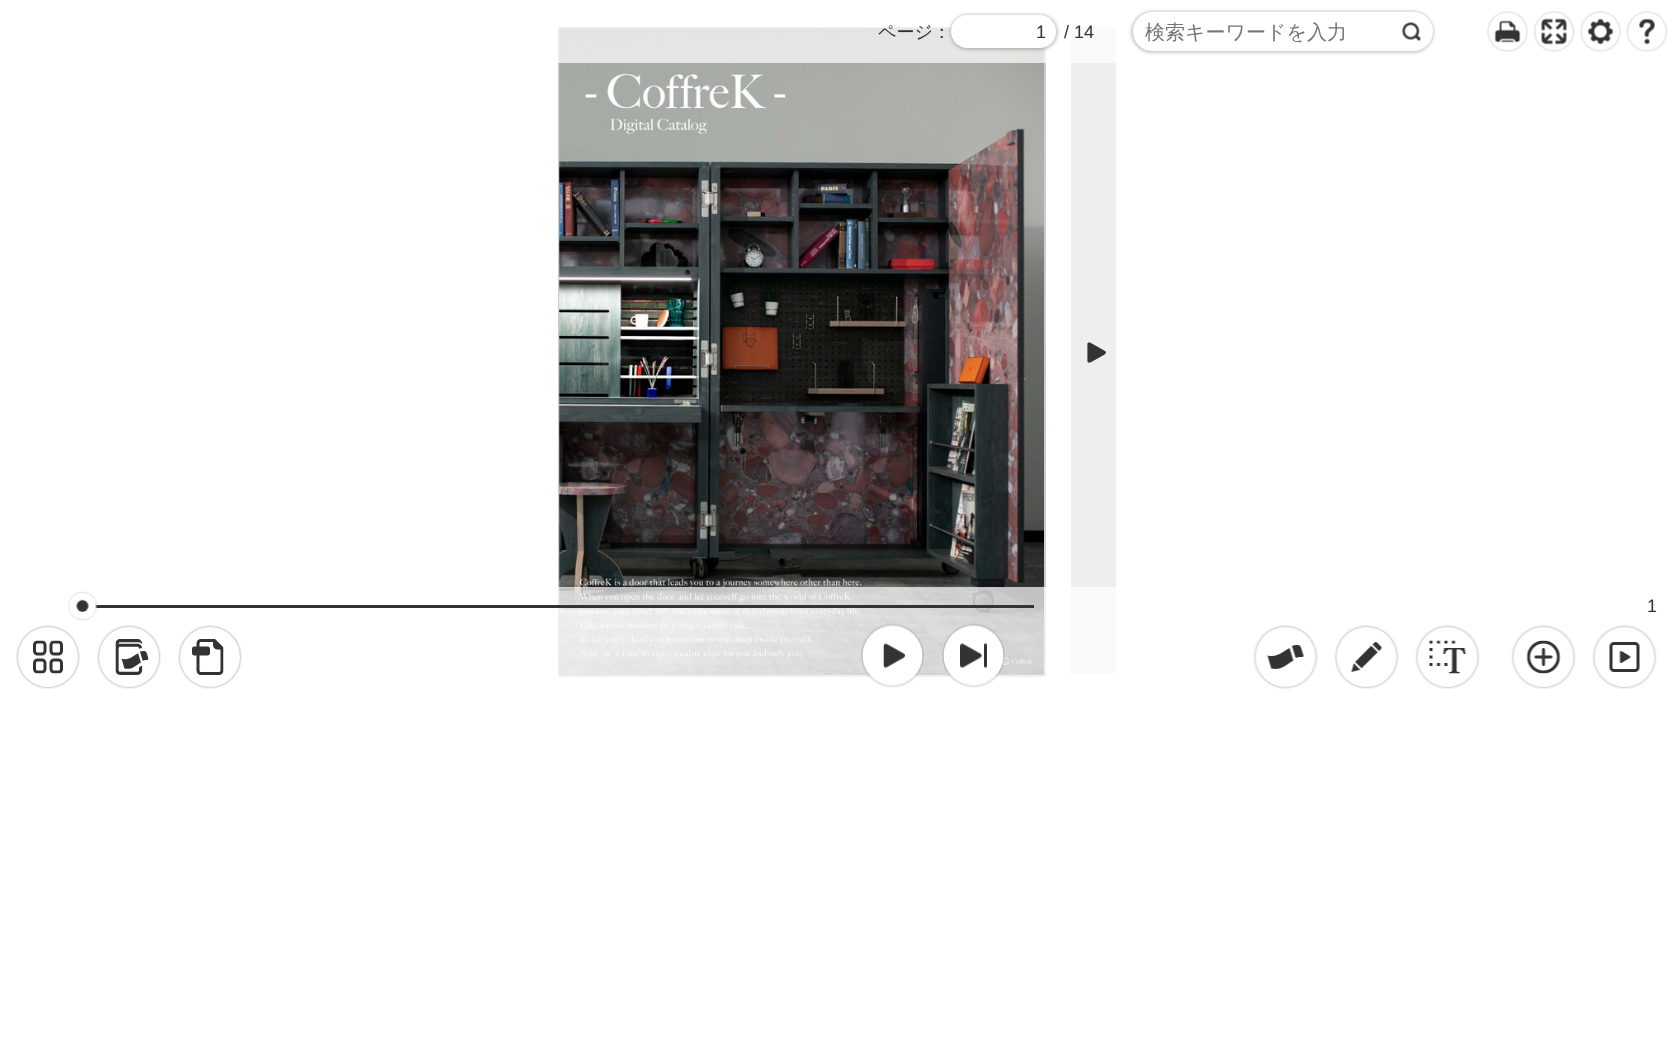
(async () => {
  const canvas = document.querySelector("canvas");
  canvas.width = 1672;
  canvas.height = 1048;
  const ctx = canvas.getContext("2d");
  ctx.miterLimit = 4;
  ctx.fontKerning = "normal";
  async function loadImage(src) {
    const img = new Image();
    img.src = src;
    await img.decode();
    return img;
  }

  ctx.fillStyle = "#ffffff";
  ctx.fillRect(0, 0, 1672, 1048);
  ctx.strokeStyle = "#cccccc";
  ctx.lineWidth = 2;
  ctx.strokeRect(559, 28, 486, 648);
  ctx.drawImage(await loadImage("img/8.png"), 559, 28, 393, 647);
  ctx.drawImage(await loadImage("img/9.png"), 559, 28, 485, 647);
  ctx.fillStyle = "#eeeeee";
  ctx.fillRect(1071, 27, 45, 647);
  ctx.fillStyle = "rgba(255, 255, 255, 0.7)";
  ctx.fillRect(558, 27, 558, 36);
  ctx.fillStyle = "rgba(0, 0, 0, 0.2)";
  ctx.filter = "blur(1.5px)";
  ctx.beginPath();
  ctx.roundRect(950, 14, 108, 36, 18);
  ctx.fill();
  ctx.filter = "none";
  ctx.fillStyle = "#ffffff";
  ctx.beginPath();
  ctx.roundRect(951, 15, 105, 33, 16.5);
  ctx.fill();
  ctx.fillStyle = "rgba(0, 0, 0, 0.2)";
  ctx.filter = "blur(1.5px)";
  ctx.beginPath();
  ctx.roundRect(1131, 11, 303, 42, 21);
  ctx.fill();
  ctx.filter = "none";
  ctx.fillStyle = "#ffffff";
  ctx.beginPath();
  ctx.roundRect(1133, 12, 300, 39, 19.5);
  ctx.fill();
  ctx.drawImage(await loadImage("img/1.png"), 1402, 22, 19, 19);
  ctx.drawImage(await loadImage("img/2.png"), 1487, 11, 41, 41);
  ctx.drawImage(await loadImage("img/3.png"), 1494, 20, 27, 23);
  ctx.drawImage(await loadImage("img/4.png"), 1533, 11, 42, 41);
  ctx.drawImage(await loadImage("img/5.png"), 1541, 18, 26, 27);
  ctx.drawImage(await loadImage("img/2.png"), 1580, 11, 41, 41);
  ctx.drawImage(await loadImage("img/6.png"), 1587, 18, 27, 27);
  ctx.drawImage(await loadImage("img/4.png"), 1626, 11, 42, 41);
  ctx.drawImage(await loadImage("img/7.png"), 1639, 18, 16, 27);
  ctx.drawImage(await loadImage("img/10.png"), 1087, 342, 19, 21);
  ctx.fillStyle = "rgba(255, 255, 255, 0.7)";
  ctx.fillRect(558, 587, 558, 90);
  ctx.fillStyle = "#333333";
  ctx.fillRect(95, 605, 939, 3);
  ctx.drawImage(await loadImage("img/11.png"), 68, 591, 30, 30);
  ctx.drawImage(await loadImage("img/12.png"), 16, 625, 64, 64);
  ctx.drawImage(await loadImage("img/13.png"), 33, 640, 30, 34);
  ctx.drawImage(await loadImage("img/14.png"), 97, 625, 64, 64);
  ctx.drawImage(await loadImage("img/15.png"), 115, 639, 34, 36);
  ctx.drawImage(await loadImage("img/16.png"), 178, 625, 64, 64);
  ctx.drawImage(await loadImage("img/17.png"), 192, 639, 32, 36);
  ctx.drawImage(await loadImage("img/18.png"), 860, 623, 64, 65);
  ctx.drawImage(await loadImage("img/19.png"), 883, 643, 22, 25);
  ctx.drawImage(await loadImage("img/20.png"), 942, 623, 64, 65);
  ctx.drawImage(await loadImage("img/21.png"), 960, 643, 27, 25);
  ctx.drawImage(await loadImage("img/22.png"), 1253, 625, 65, 64);
  ctx.drawImage(await loadImage("img/23.png"), 1267, 645, 37, 24);
  ctx.drawImage(await loadImage("img/24.png"), 1334, 625, 65, 64);
  ctx.drawImage(await loadImage("img/25.png"), 1351, 642, 31, 30);
  ctx.drawImage(await loadImage("img/26.png"), 1415, 625, 65, 64);
  ctx.drawImage(await loadImage("img/27.png"), 1429, 640, 37, 34);
  ctx.drawImage(await loadImage("img/26.png"), 1511, 625, 65, 64);
  ctx.drawImage(await loadImage("img/28.png"), 1526, 640, 35, 34);
  ctx.drawImage(await loadImage("img/29.png"), 1592, 625, 65, 64);
  ctx.drawImage(await loadImage("img/30.png"), 1609, 642, 31, 30);
  ctx.font = "500 18px WenQuanYi Zen Hei";
  ctx.fillText("ページ：", 878, 38);
  ctx.font = "18px Liberation Sans";
  ctx.fillText("1", 1036, 38);
  ctx.fillText("/ 14", 1064, 38);
  ctx.font = "500 20px WenQuanYi Zen Hei";
  ctx.fillStyle = "#757575";
  ctx.fillText("検索キーワードを入力", 1145, 39);
  ctx.font = "18px Liberation Sans";
  ctx.fillStyle = "#333333";
  ctx.fillText("1", 1647, 612);
})();
